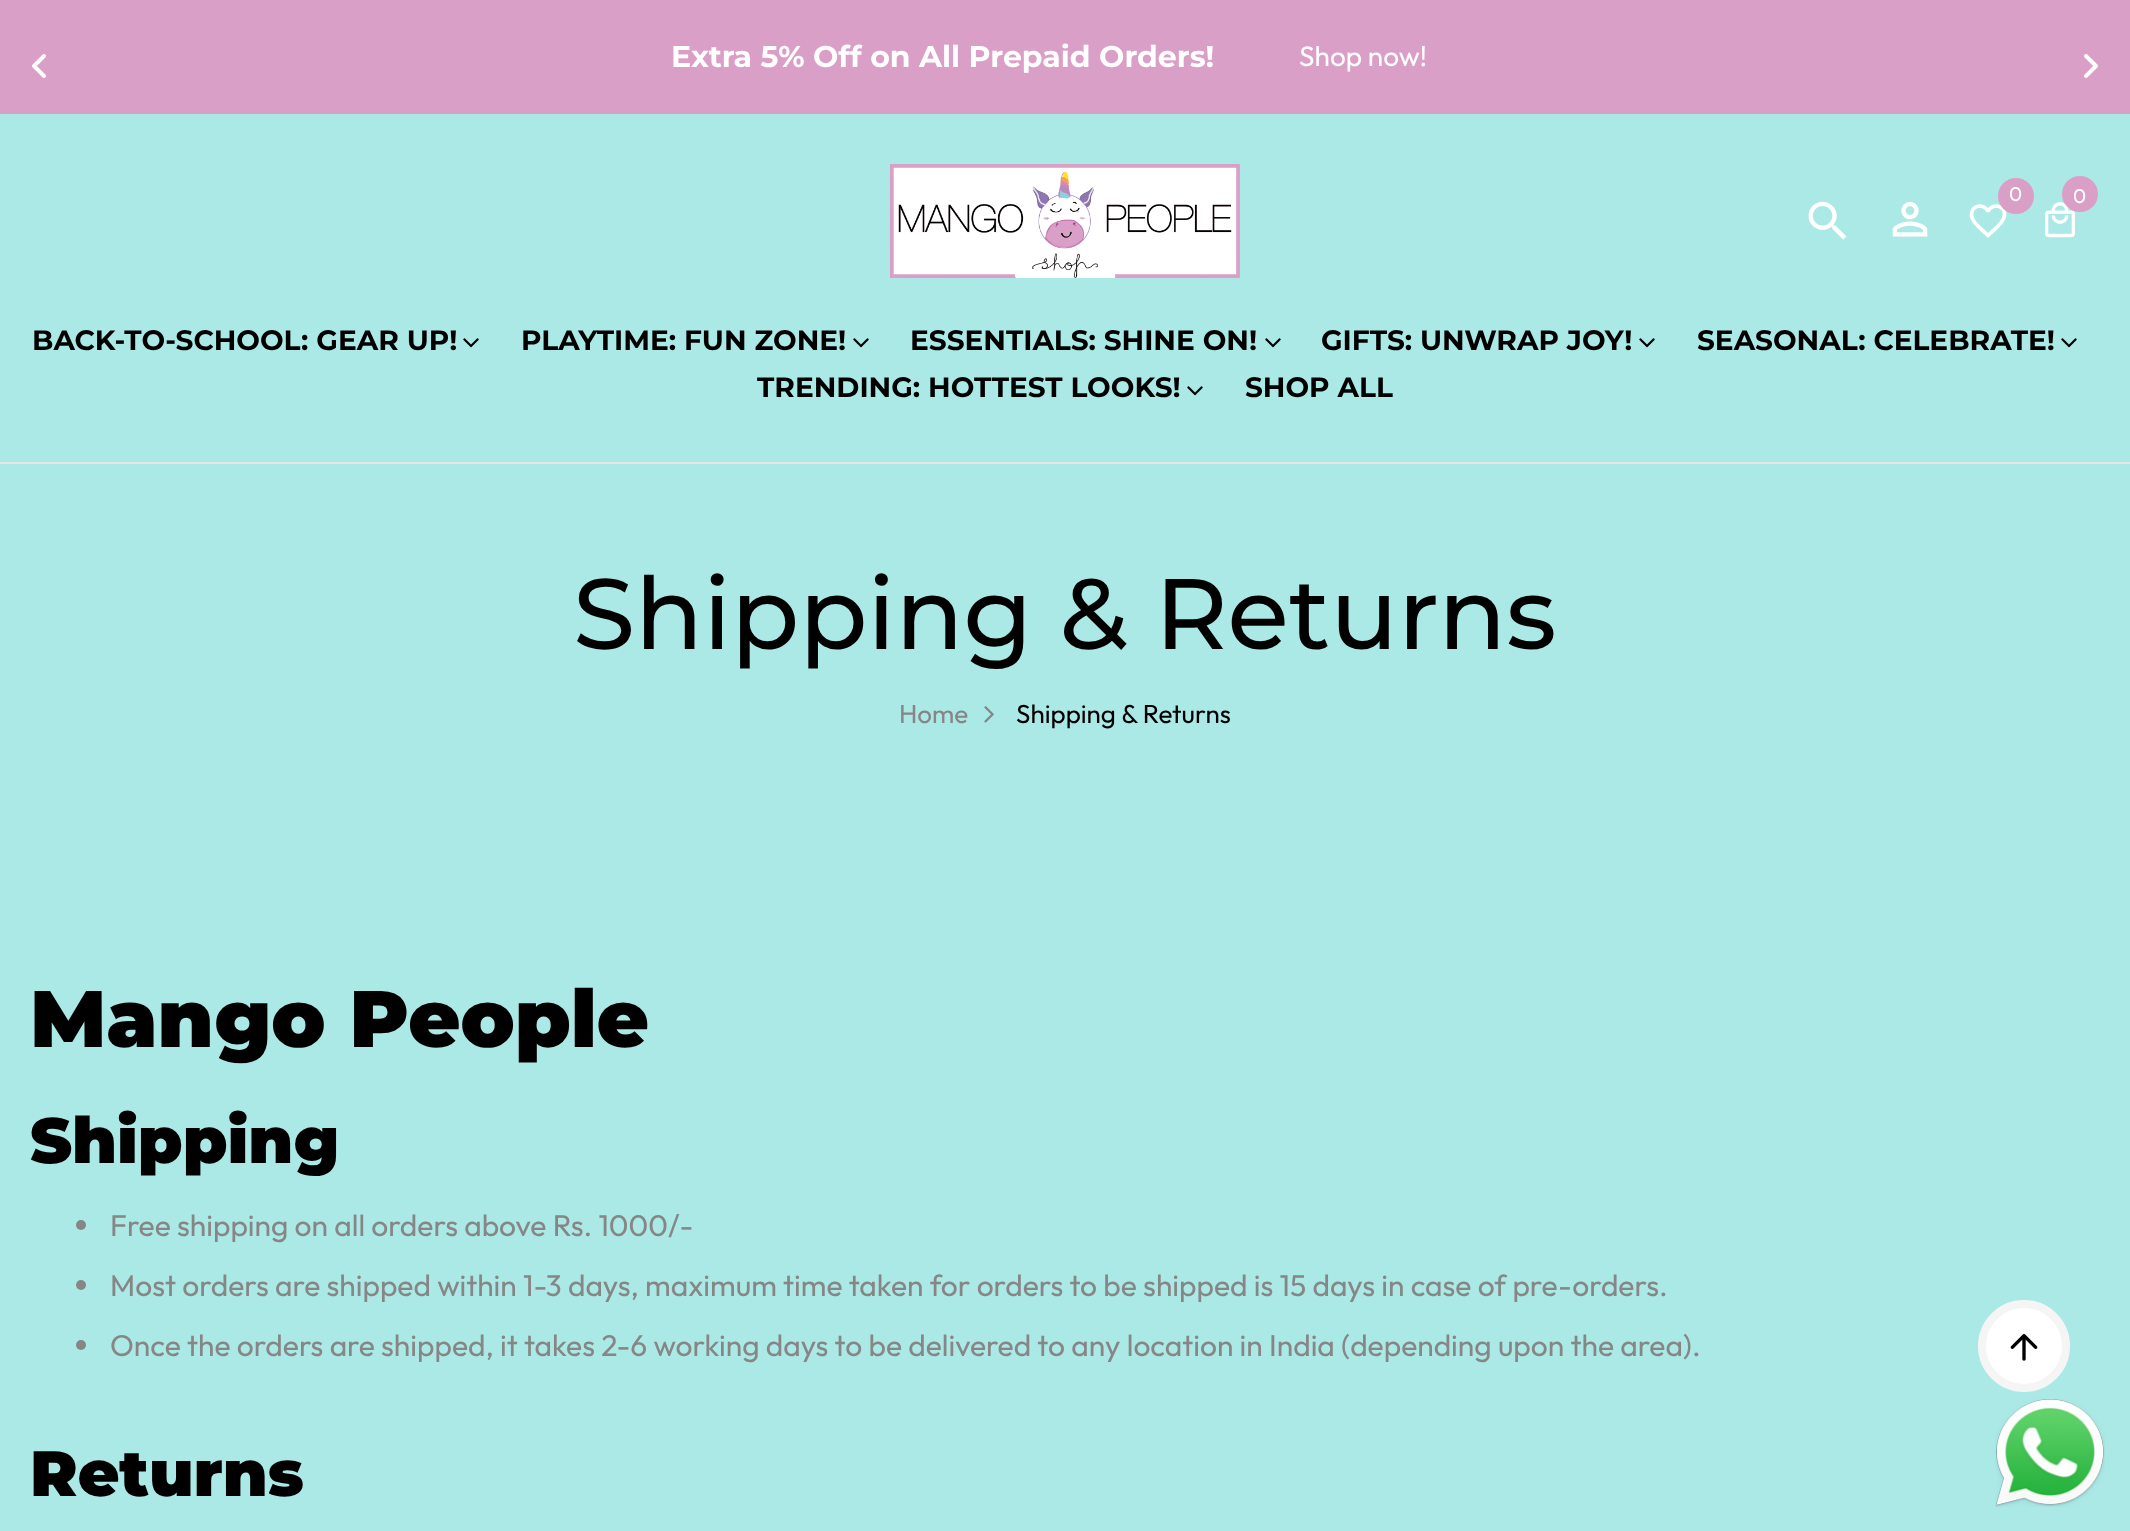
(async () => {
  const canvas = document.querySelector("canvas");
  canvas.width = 2130;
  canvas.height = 1531;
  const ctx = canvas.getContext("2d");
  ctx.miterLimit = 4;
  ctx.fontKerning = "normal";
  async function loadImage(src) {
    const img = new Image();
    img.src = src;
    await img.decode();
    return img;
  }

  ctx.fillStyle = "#abe9e6";
  ctx.fillRect(0, 0, 2130, 1531);
  ctx.fillStyle = "#da9fc6";
  ctx.fillRect(0, 0, 2130, 114);
  ctx.drawImage(await loadImage("img/1.png"), 32, 54, 14, 24);
  ctx.drawImage(await loadImage("img/2.png"), 2084, 54, 14, 24);
  ctx.fillStyle = "#e5e5e5";
  ctx.fillRect(0, 462, 2130, 2);
  ctx.drawImage(await loadImage("img/3.png"), 890, 164, 350, 114);
  ctx.drawImage(await loadImage("img/4.png"), 1969, 204, 38, 34);
  ctx.fillStyle = "#da9fc6";
  ctx.beginPath();
  ctx.arc(2016, 196, 18, 0, Math.PI * 2);
  ctx.fill();
  ctx.drawImage(await loadImage("img/5.png"), 2045, 202, 30, 36);
  ctx.beginPath();
  ctx.arc(2080, 194, 18, 0, Math.PI * 2);
  ctx.fill();
  ctx.drawImage(await loadImage("img/6.png"), 1808, 201, 39, 39);
  ctx.drawImage(await loadImage("img/7.png"), 1892, 202, 36, 35);
  ctx.drawImage(await loadImage("img/8.png"), 463, 338, 16, 10);
  ctx.drawImage(await loadImage("img/8.png"), 853, 338, 16, 10);
  ctx.drawImage(await loadImage("img/8.png"), 1265, 338, 16, 10);
  ctx.drawImage(await loadImage("img/8.png"), 1639, 338, 16, 10);
  ctx.drawImage(await loadImage("img/8.png"), 2061, 338, 16, 10);
  ctx.drawImage(await loadImage("img/8.png"), 1187, 386, 16, 10);
  ctx.drawImage(await loadImage("img/9.png"), 984, 706, 10, 17);
  ctx.fillStyle = "#868686";
  ctx.beginPath();
  ctx.arc(81, 1225, 5, 0, Math.PI * 2);
  ctx.fill();
  ctx.beginPath();
  ctx.arc(81, 1285, 5, 0, Math.PI * 2);
  ctx.fill();
  ctx.beginPath();
  ctx.arc(81, 1345, 5, 0, Math.PI * 2);
  ctx.fill();
  ctx.fillStyle = "#ffffff";
  ctx.beginPath();
  ctx.arc(2024, 1346, 42, 0, Math.PI * 2);
  ctx.fill();
  ctx.strokeStyle = "#f5f5f5";
  ctx.lineWidth = 8;
  ctx.stroke();
  ctx.drawImage(await loadImage("img/10.png"), 2010, 1334, 28, 27);
  ctx.drawImage(await loadImage("img/11.png"), 1995, 1399, 110, 108);
  ctx.font = "bold 30px Montserrat";
  ctx.fillText("Extra 5% Off on All Prepaid Orders!", 671, 67);
  ctx.font = "28px Outfit";
  ctx.fillText("Shop now!", 1299, 66);
  ctx.font = "20px Outfit";
  ctx.fillText("0", 2009, 201);
  ctx.fillText("0", 2073, 203);
  ctx.font = "bold 28px Montserrat";
  ctx.fillStyle = "#000000";
  for (const [text, x, y] of [
    ["BACK-TO-SCHOOL: GEAR UP!", 32, 350],
    ["PLAYTIME: FUN ZONE!", 521, 350],
    ["ESSENTIALS: SHINE ON!", 910, 350],
    ["GIFTS: UNWRAP JOY!", 1321, 350],
    ["SEASONAL: CELEBRATE!", 1697, 350],
    ["TRENDING: HOTTEST LOOKS!", 757, 397],
    ["SHOP ALL", 1245, 397],
  ]) {
    ctx.fillText(text, x, y);
  }
  ctx.font = "500 100px Montserrat";
  ctx.fillText("Shipping & Returns", 573, 649);
  ctx.font = "26px Outfit";
  ctx.fillStyle = "#868686";
  ctx.fillText("Home", 899, 723);
  ctx.fillStyle = "#000000";
  ctx.fillText("Shipping & Returns", 1016, 723);
  ctx.font = "900 80px Montserrat";
  ctx.fillText("Mango People", 30, 1047);
  ctx.font = "900 64px Montserrat";
  ctx.fillText("Shipping", 30, 1163);
  ctx.font = "30px Outfit";
  ctx.fillStyle = "#868686";
  for (const [text, x, y] of [
    ["Free shipping on all orders above Rs. 1000/-", 110, 1236],
    ["Most orders are shipped within 1-3 days, maximum time taken for orders to be shipped is 15 days in case of pre-orders.", 110, 1296],
    ["Once the orders are shipped, it takes 2-6 working days to be delivered to any location in India (depending upon the area).", 110, 1356],
  ]) {
    ctx.fillText(text, x, y);
  }
  ctx.font = "900 64px Montserrat";
  ctx.fillStyle = "#000000";
  ctx.fillText("Returns", 30, 1496);
})();
